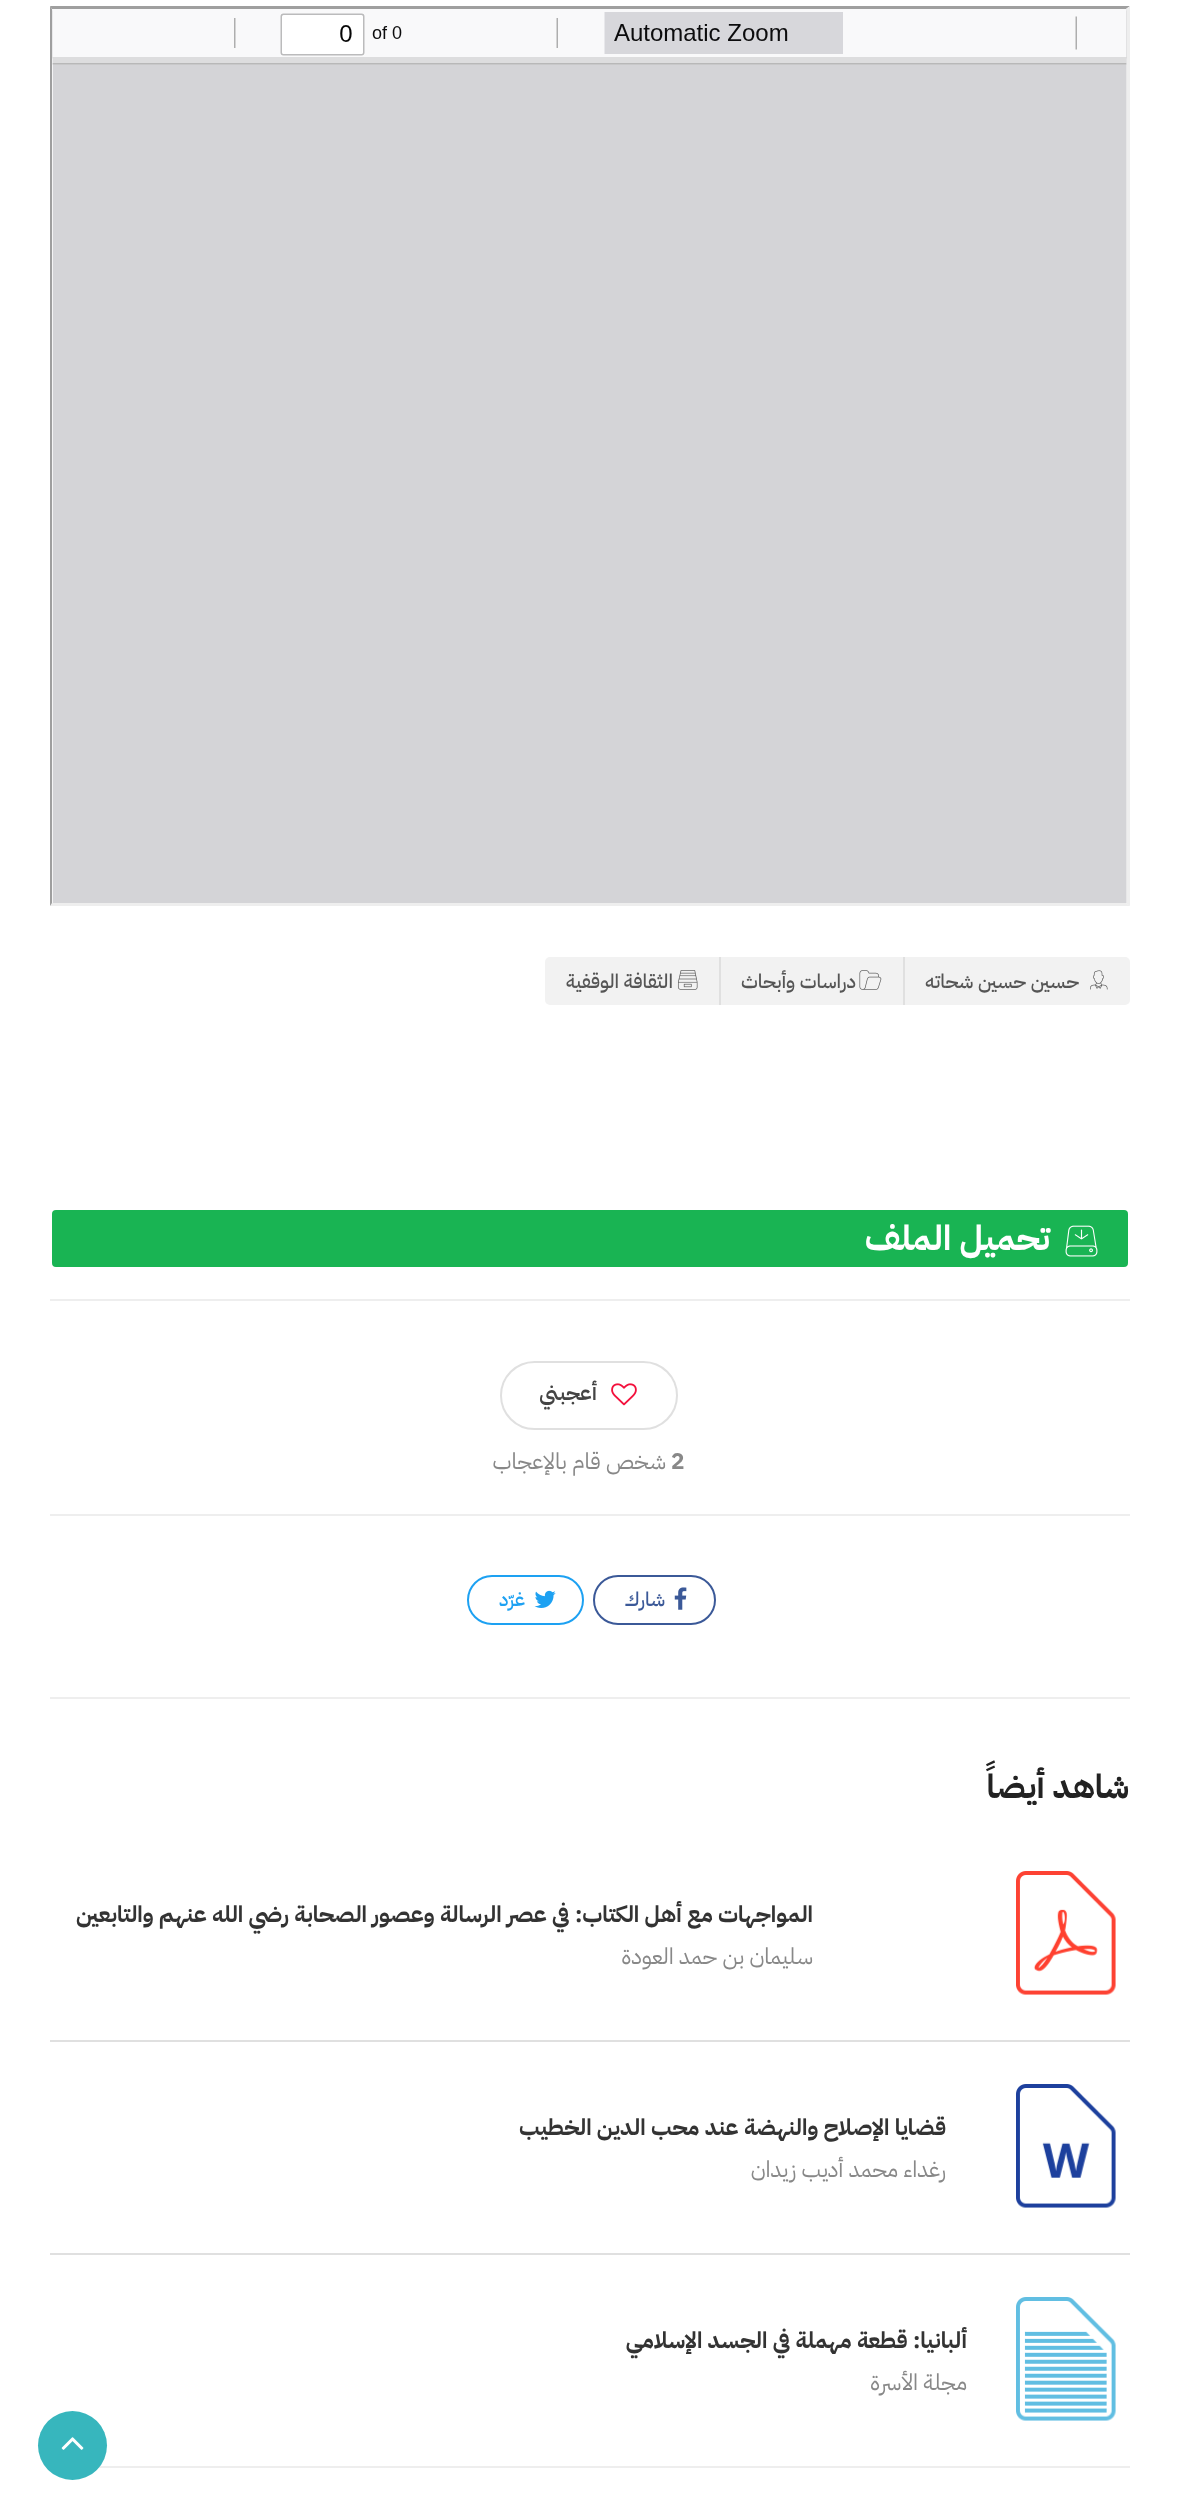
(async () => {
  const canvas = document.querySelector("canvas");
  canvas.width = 1177;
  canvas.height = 2516;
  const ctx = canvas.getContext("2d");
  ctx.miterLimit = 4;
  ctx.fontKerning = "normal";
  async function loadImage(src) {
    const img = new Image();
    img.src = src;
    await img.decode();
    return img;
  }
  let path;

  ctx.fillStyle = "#ffffff";
  ctx.fillRect(0, 0, 1177, 2516);
  ctx.fillStyle = "#9f9f9f";
  path = new Path2D("M50 6H1130L1126 9H52Z");
  ctx.fill(path);
  ctx.fillStyle = "#eeeeee";
  path = new Path2D("M1130 6V906L1126 903V9Z");
  ctx.fill(path);
  ctx.drawImage(await loadImage("img/1.png"), 52, 9, 1075, 894);
  path = new Path2D("M1130 906H50L52 903H1126Z");
  ctx.fill(path);
  ctx.fillStyle = "#9f9f9f";
  path = new Path2D("M50 906V6L52 9V903Z");
  ctx.fill(path);
  ctx.fillStyle = "#f2f2f2";
  ctx.beginPath();
  ctx.roundRect(905, 957, 225, 48, [0, 5, 5, 0]);
  ctx.fill();
  ctx.drawImage(await loadImage("img/2.png"), 1090, 970, 18, 20);
  ctx.fillRect(721, 957, 182, 48);
  ctx.fillStyle = "#e0e0e0";
  ctx.fillRect(903, 957, 2, 48);
  ctx.drawImage(await loadImage("img/3.png"), 859, 970, 23, 20);
  ctx.fillStyle = "#f2f2f2";
  ctx.beginPath();
  ctx.roundRect(545, 957, 175, 48, [5, 0, 0, 5]);
  ctx.fill();
  ctx.fillStyle = "#e0e0e0";
  ctx.fillRect(719, 957, 2, 48);
  ctx.drawImage(await loadImage("img/4.png"), 677, 970, 21, 20);
  ctx.fillStyle = "#19b453";
  ctx.beginPath();
  ctx.roundRect(51, 1209, 1078, 59, 5);
  ctx.fill();
  ctx.strokeStyle = "#ffffff";
  ctx.lineWidth = 2;
  ctx.stroke();
  ctx.drawImage(await loadImage("img/5.png"), 1065, 1225, 33, 32);
  ctx.fillStyle = "#eeeeee";
  ctx.fillRect(50, 1299, 1080, 2);
  ctx.beginPath();
  ctx.roundRect(501, 1362, 176, 67, 33.5);
  ctx.strokeStyle = "#e0e0e0";
  ctx.stroke();
  ctx.drawImage(await loadImage("img/6.png"), 611, 1383, 26, 23);
  ctx.fillRect(50, 1514, 1080, 2);
  ctx.beginPath();
  ctx.roundRect(594, 1576, 121, 48, 24);
  ctx.strokeStyle = "#3b5998";
  ctx.stroke();
  ctx.drawImage(await loadImage("img/7.png"), 674, 1587, 13, 23);
  ctx.beginPath();
  ctx.roundRect(468, 1576, 115, 48, 24);
  ctx.strokeStyle = "#1da1f2";
  ctx.stroke();
  ctx.drawImage(await loadImage("img/8.png"), 534, 1590, 22, 18);
  ctx.fillRect(50, 1697, 1080, 2);
  ctx.fillStyle = "#e0e0e0";
  ctx.fillRect(50, 2040, 1080, 2);
  ctx.drawImage(await loadImage("img/9.png"), 1016, 1871, 100, 124);
  ctx.fillRect(50, 2253, 1080, 2);
  ctx.drawImage(await loadImage("img/10.png"), 1016, 2084, 100, 124);
  ctx.drawImage(await loadImage("img/11.png"), 1016, 2297, 100, 124);
  ctx.fillStyle = "#eeeeee";
  ctx.fillRect(98, 2466, 1032, 2);
  ctx.fillStyle = "#37b6bd";
  ctx.beginPath();
  ctx.arc(72.5, 2445.5, 34.5, 0, Math.PI * 2);
  ctx.fill();
  ctx.drawImage(await loadImage("img/12.png"), 61, 2437, 23, 13);
  ctx.direction = "rtl";
  ctx.font = "500 19.5px IBM Plex Sans Arabic";
  ctx.fillStyle = "#555555";
  for (const [text, x, y] of [
    ["حسين حسين شحاته", 1079, 988],
    ["دراسات وأبحاث", 856, 988],
    ["الثقافة الوقفية", 673, 988],
  ]) {
    ctx.fillText(text, x, y);
  }
  ctx.font = "bold 34.5px IBM Plex Sans Arabic";
  ctx.fillStyle = "#ffffff";
  ctx.fillText("تحميل الملف", 1050, 1250);
  ctx.font = "600 21px IBM Plex Sans Arabic";
  ctx.fillStyle = "#444444";
  ctx.fillText("أعجبني", 597, 1400);
  ctx.direction = "ltr";
  ctx.font = "bold 22.5px IBM Plex Sans Arabic";
  ctx.fillStyle = "#888888";
  ctx.fillText("2", 671, 1469);
  ctx.direction = "rtl";
  ctx.font = "22.5px IBM Plex Sans Arabic";
  ctx.fillText("شخص قام بالإعجاب", 666, 1469);
  ctx.font = "500 19.5px IBM Plex Sans Arabic";
  ctx.fillStyle = "#3b5998";
  ctx.fillText("شارك", 665, 1606);
  ctx.fillStyle = "#1da1f2";
  ctx.fillText("غرّد", 525, 1606);
  ctx.font = "bold 33px IBM Plex Sans Arabic";
  ctx.fillStyle = "#222222";
  ctx.fillText("شاهد أيضاً", 1129, 1798);
  ctx.font = "bold 22.5px IBM Plex Sans Arabic";
  ctx.fillStyle = "#333333";
  ctx.fillText("المواجهات مع أهل الكتاب: في عصر الرسالة وعصور الصحابة رضي الله عنهم والتابعين", 813, 1922);
  ctx.font = "22.5px IBM Plex Sans Arabic";
  ctx.fillStyle = "#888888";
  ctx.fillText("سليمان بن حمد العودة", 813, 1964);
  ctx.font = "bold 22.5px IBM Plex Sans Arabic";
  ctx.fillStyle = "#333333";
  ctx.fillText("قضايا الإصلاح والنهضة عند محب الدين الخطيب", 946, 2135);
  ctx.font = "22.5px IBM Plex Sans Arabic";
  ctx.fillStyle = "#888888";
  ctx.fillText("رغداء محمد أديب زيدان", 946, 2177);
  ctx.font = "bold 22.5px IBM Plex Sans Arabic";
  ctx.fillStyle = "#333333";
  ctx.fillText("ألبانيا: قطعة مهملة في الجسد الإسلامي", 967, 2348);
  ctx.font = "22.5px IBM Plex Sans Arabic";
  ctx.fillStyle = "#888888";
  ctx.fillText("مجلة الأسرة", 967, 2390);
})();
